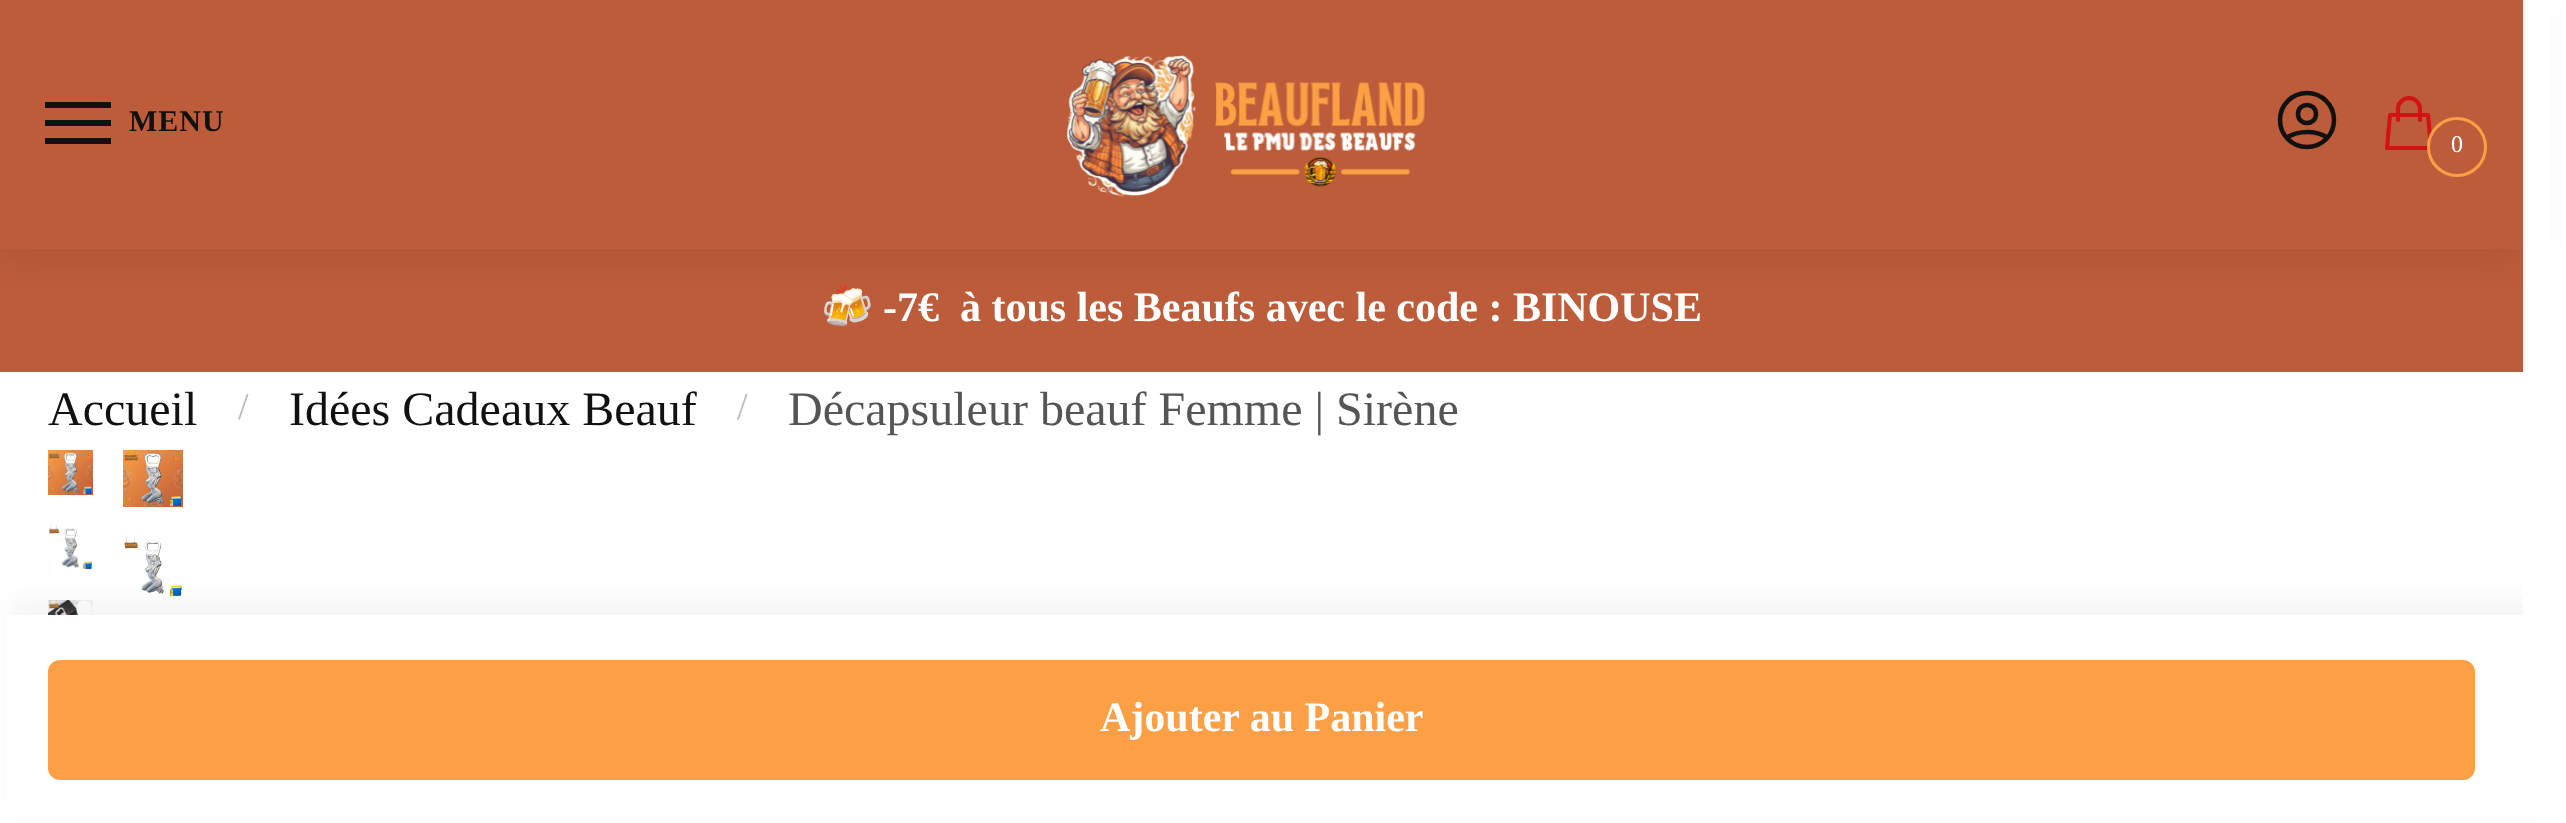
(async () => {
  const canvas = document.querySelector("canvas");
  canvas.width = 2566;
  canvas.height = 823;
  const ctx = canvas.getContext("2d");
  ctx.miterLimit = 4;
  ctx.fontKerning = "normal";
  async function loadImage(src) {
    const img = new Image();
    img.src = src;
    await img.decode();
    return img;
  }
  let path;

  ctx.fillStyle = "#ffffff";
  ctx.fillRect(0, 0, 2566, 823);
  ctx.fillStyle = "#bc5c3a";
  ctx.fillRect(0, 249, 2523, 123);
  ctx.fillStyle = "rgba(0, 0, 0, 0.08)";
  ctx.filter = "blur(22.5px)";
  ctx.beginPath();
  ctx.rect(0, 3, 2523, 249);
  ctx.fill();
  ctx.filter = "none";
  for (const [x, y, w, h, color] of [
    [0, 0, 2523, 249, "#bc5c3a"],
    [45, 102, 66, 6, "#111111"],
    [45, 120, 66, 6, "#111111"],
    [45, 138, 66, 6, "#111111"],
  ]) {
    ctx.fillStyle = color;
    ctx.fillRect(x, y, w, h);
  }
  ctx.drawImage(await loadImage("img/1.png"), 1066, 55, 359, 142);
  path = new Path2D("M2286.5 137.5C2299 130.5 2315 130 2327.5 137.5M2316 114C2316 126 2298 126 2298 114C2298 102 2316 102 2316 114ZM2334 120C2334 135 2322 147 2307 147C2292 147 2280 135 2280 120C2280 105 2292 93 2307 93C2322 93 2334 105 2334 120Z");
  ctx.strokeStyle = "#111111";
  ctx.lineWidth = 4.5;
  ctx.lineCap = "round";
  ctx.lineJoin = "round";
  ctx.stroke(path);
  path = new Path2D("M2420 120V109C2420 103 2415 98 2409 98C2403 98 2398 103 2398 109V120M2390 115H2428L2431 148H2387Z");
  ctx.strokeStyle = "#d21312";
  ctx.lineWidth = 4.1;
  ctx.stroke(path);
  ctx.fillStyle = "#bc5c3a";
  ctx.beginPath();
  ctx.arc(2457, 147, 28.5, 0, Math.PI * 2);
  ctx.fill();
  ctx.strokeStyle = "#fda045";
  ctx.lineWidth = 3;
  ctx.stroke();
  ctx.drawImage(await loadImage("img/4.png"), 48, 600, 45, 15);
  ctx.drawImage(await loadImage("img/6.png"), 124, 537, 58, 60);
  ctx.fillStyle = "rgba(50, 50, 50, 0.05)";
  ctx.filter = "blur(9px)";
  ctx.beginPath();
  ctx.rect(12, 600, 2523, 210);
  ctx.fill();
  ctx.filter = "none";
  ctx.fillStyle = "#ffffff";
  ctx.fillRect(2523, 0, 26, 815);
  ctx.drawImage(await loadImage("img/2.png"), 48, 450, 45, 45);
  ctx.drawImage(await loadImage("img/3.png"), 49, 525, 44, 45);
  ctx.drawImage(await loadImage("img/5.png"), 123, 450, 60, 57);
  ctx.fillRect(6, 615, 2517, 201);
  ctx.fillStyle = "#fda045";
  ctx.beginPath();
  ctx.roundRect(48, 660, 2427, 120, 12);
  ctx.fill();
  ctx.letterSpacing = "1px";
  ctx.font = "bold 30px Liberation Serif";
  ctx.fillStyle = "#111111";
  ctx.fillText("MENU", 129, 131);
  ctx.letterSpacing = "0px";
  ctx.font = "24px Liberation Serif";
  ctx.fillStyle = "#ffffff";
  ctx.fillText("0", 2451, 152);
  ctx.font = "bold 42px Noto Color Emoji";
  ctx.fillText("🍻", 821, 321);
  ctx.font = "bold 42px Liberation Serif";
  ctx.fillText("-7€  à tous les Beaufs avec le code : BINOUSE", 883, 321);
  ctx.font = "48px Liberation Serif";
  ctx.fillStyle = "#111111";
  ctx.fillText("Accueil", 48, 425);
  ctx.font = "38px Liberation Serif";
  ctx.fillStyle = "#bbbbbb";
  ctx.fillText("/", 238, 419);
  ctx.font = "48px Liberation Serif";
  ctx.fillStyle = "#111111";
  ctx.fillText("Idées Cadeaux Beauf", 289, 425);
  ctx.font = "38px Liberation Serif";
  ctx.fillStyle = "#bbbbbb";
  ctx.fillText("/", 737, 419);
  ctx.font = "48px Liberation Serif";
  ctx.fillStyle = "#555555";
  ctx.fillText("Décapsuleur beauf Femme | Sirène", 788, 425);
  ctx.font = "bold 42px Liberation Serif";
  ctx.fillStyle = "#ffffff";
  ctx.fillText("Ajouter au Panier", 1100, 731);
})();
